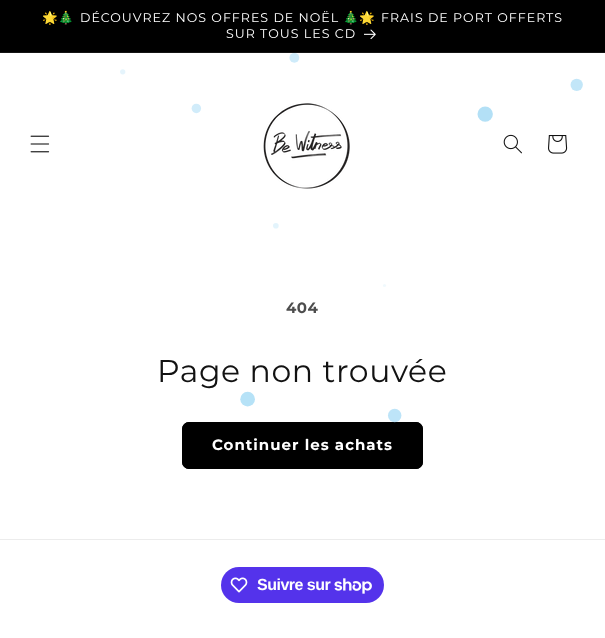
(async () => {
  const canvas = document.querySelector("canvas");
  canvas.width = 605;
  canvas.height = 638;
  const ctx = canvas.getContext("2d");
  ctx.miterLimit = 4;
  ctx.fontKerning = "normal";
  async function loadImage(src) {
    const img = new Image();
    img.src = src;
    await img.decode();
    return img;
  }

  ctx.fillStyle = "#ffffff";
  ctx.fillRect(0, 0, 605, 638);
  ctx.fillStyle = "#000000";
  ctx.fillRect(0, 0, 605, 52);
  ctx.fillStyle = "#141414";
  ctx.fillRect(0, 52, 605, 1);
  ctx.drawImage(await loadImage("img/1.png"), 364, 29, 12, 10);
  ctx.drawImage(await loadImage("img/3.png"), 30, 135, 20, 18);
  ctx.drawImage(await loadImage("img/4.png"), 263, 103, 87, 86);
  ctx.drawImage(await loadImage("img/5.png"), 503, 134, 19, 20);
  ctx.drawImage(await loadImage("img/6.png"), 548, 135, 20, 19);
  ctx.fillStyle = "#000000";
  ctx.beginPath();
  ctx.roundRect(182, 422, 241, 47, 7);
  ctx.fill();
  ctx.beginPath();
  ctx.roundRect(182.5, 422.5, 240, 46, 6.5);
  ctx.strokeStyle = "#000000";
  ctx.stroke();
  ctx.fillStyle = "#ececec";
  ctx.fillRect(0, 539, 605, 1);
  ctx.fillStyle = "#5433eb";
  ctx.beginPath();
  ctx.roundRect(221, 567, 163, 36, 18);
  ctx.fill();
  ctx.drawImage(await loadImage("img/7.png"), 230, 577, 18, 16);
  ctx.drawImage(await loadImage("img/8.png"), 334, 578, 38, 16);
  ctx.letterSpacing = "1px";
  ctx.font = "12.6px Noto Color Emoji";
  ctx.fillStyle = "#ffffff";
  ctx.fillText("🌟🎄", 42, 22);
  ctx.font = "12.6px Montserrat";
  ctx.fillText("DÉCOUVREZ NOS OFFRES DE NOËL", 80, 22);
  ctx.font = "12.6px Noto Color Emoji";
  ctx.fillText("🎄🌟", 343, 22);
  ctx.font = "12.6px Montserrat";
  ctx.fillText("FRAIS DE PORT OFFERTS", 381, 22);
  ctx.fillText("SUR TOUS LES CD", 226, 38);
  ctx.letterSpacing = "0.5px";
  ctx.font = "bold 15px Montserrat";
  ctx.fillStyle = "#4d4d4d";
  ctx.fillText("404", 286, 313);
  ctx.letterSpacing = "0.6px";
  ctx.font = "31.5px Montserrat";
  ctx.fillStyle = "#121212";
  ctx.fillText("Page non trouvée", 157, 382);
  ctx.drawImage(await loadImage("img/2.png"), 120, 53, 463, 370);
  ctx.letterSpacing = "1px";
  ctx.font = "bold 15px Montserrat";
  ctx.fillStyle = "#ffffff";
  ctx.fillText("Continuer les achats", 212, 450);
  ctx.letterSpacing = "-0.5px";
  ctx.font = "bold 16px Liberation Sans";
  ctx.fillText("Suivre sur", 257, 590);
})();
